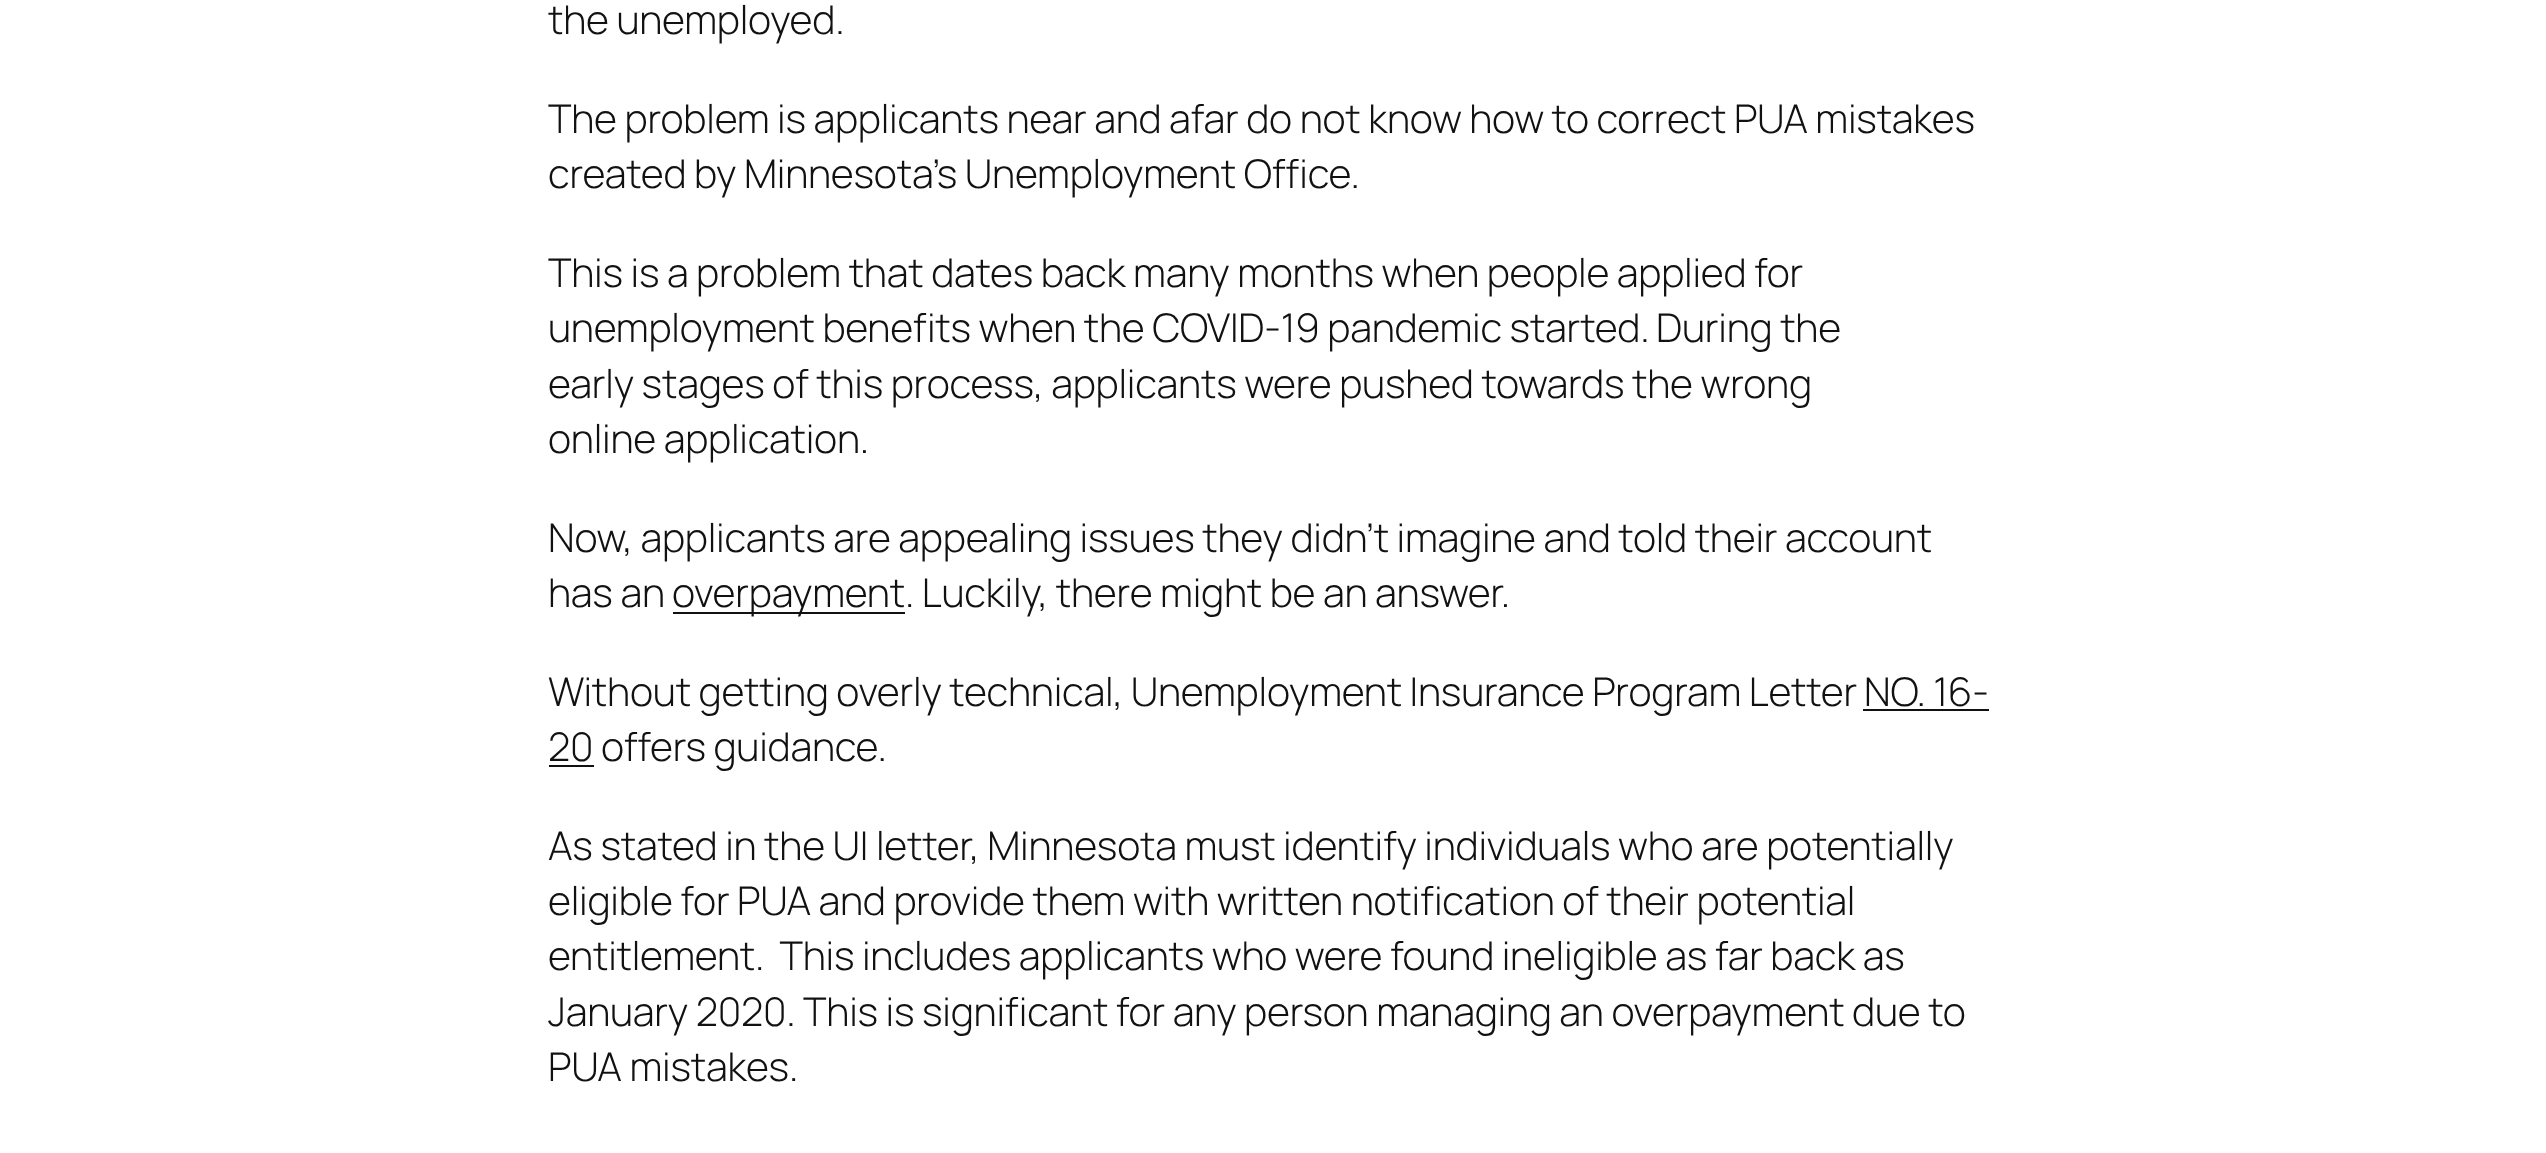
(async () => {
  const canvas = document.querySelector("canvas");
  canvas.width = 2546;
  canvas.height = 1153;
  const ctx = canvas.getContext("2d");
  ctx.miterLimit = 4;
  ctx.fontKerning = "normal";

  ctx.fillStyle = "#ffffff";
  ctx.fillRect(0, 0, 2546, 1153);
  for (const [x, y, w, h, color] of [
    [673, 612, 232, 2, "#111111"],
    [1863, 709, 126, 2, "#111111"],
    [549, 765, 45, 2, "#111111"],
  ]) {
    ctx.fillStyle = color;
    ctx.fillRect(x, y, w, h);
  }
  ctx.letterSpacing = "-0.23px";
  ctx.font = "300 39.6px Manrope";
  for (const [text, x, y] of [
    ["the unemployed.", 548, 34],
    ["The problem is applicants near and afar do not know how to correct PUA mistakes", 548, 133],
    ["created by Minnesota’s Unemployment Office.", 548, 188],
    ["This is a problem that dates back many months when people applied for", 548, 287],
    ["unemployment benefits when the COVID-19 pandemic started.", 548, 342],
    ["During the", 1656, 342],
    ["early stages of this process, applicants were pushed towards the wrong", 548, 398],
    ["online application.", 548, 453],
    ["Now, applicants are appealing issues they didn’t imagine and told their account", 548, 552],
    ["has an", 548, 607],
    ["overpayment. Luckily, there might be an answer.", 672, 607],
    ["Without getting overly technical, Unemployment Insurance Program Letter", 548, 706],
    ["NO. 16-", 1864, 706],
    ["20 offers guidance.", 548, 761],
    ["As stated in the UI letter, Minnesota must identify individuals who are potentially", 548, 860],
    ["eligible for PUA and provide them with written notification of their potential", 548, 915],
    ["entitlement.  This includes applicants who were found ineligible as far back as", 548, 970],
    ["January 2020. This is significant for any person managing an overpayment due to", 548, 1026],
    ["PUA mistakes.", 548, 1081],
  ]) {
    ctx.fillText(text, x, y);
  }
})();
